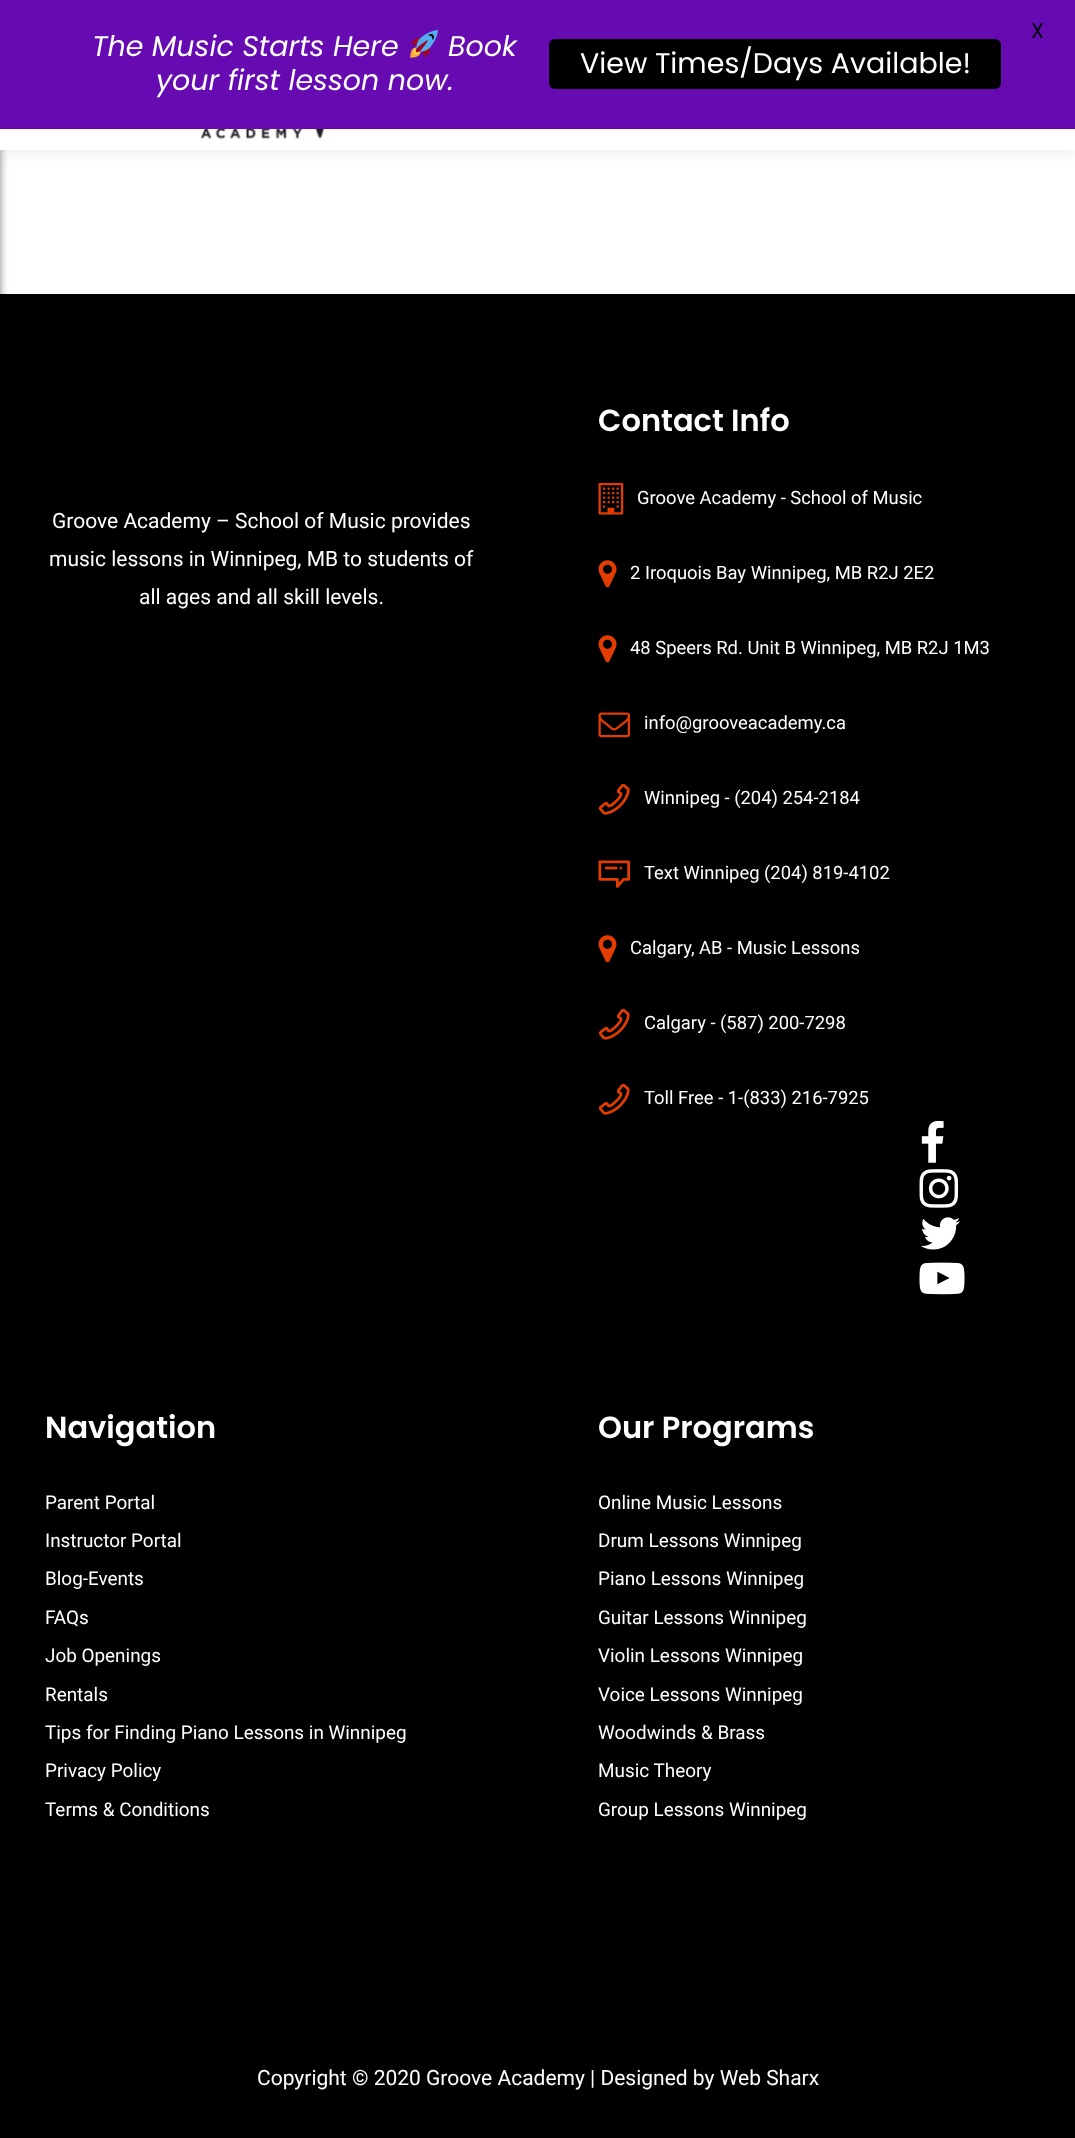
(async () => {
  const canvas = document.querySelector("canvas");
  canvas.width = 1075;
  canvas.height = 2138;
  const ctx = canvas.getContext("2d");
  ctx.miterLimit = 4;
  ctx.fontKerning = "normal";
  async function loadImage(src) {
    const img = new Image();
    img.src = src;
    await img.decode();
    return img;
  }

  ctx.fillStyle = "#ffffff";
  ctx.fillRect(0, 0, 1075, 2138);
  ctx.fillStyle = "#000000";
  ctx.fillRect(0, 294, 1075, 1844);
  ctx.fillStyle = "rgba(0, 0, 0, 0.5)";
  ctx.filter = "blur(4px)";
  ctx.beginPath();
  ctx.rect(-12, 0, 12, 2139);
  ctx.fill();
  ctx.filter = "none";
  ctx.fillStyle = "rgba(204, 204, 204, 0.5)";
  ctx.filter = "blur(7.5px)";
  ctx.beginPath();
  ctx.rect(0, 0, 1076, 150);
  ctx.fill();
  ctx.filter = "none";
  ctx.fillStyle = "#660bb1";
  ctx.fillRect(0, 0, 1075, 129);
  ctx.drawImage(await loadImage("img/1.png"), 410, 30, 28, 28);
  ctx.fillStyle = "#000000";
  ctx.beginPath();
  ctx.roundRect(549, 39, 452, 50, 6);
  ctx.fill();
  ctx.fillStyle = "#ffffff";
  ctx.fillRect(0, 129, 1075, 21);
  ctx.drawImage(await loadImage("img/2.png"), 200, 129, 125, 11);
  ctx.drawImage(await loadImage("img/3.png"), 598, 483, 26, 32);
  ctx.drawImage(await loadImage("img/4.png"), 598, 560, 19, 28);
  ctx.drawImage(await loadImage("img/4.png"), 598, 635, 19, 28);
  ctx.drawImage(await loadImage("img/5.png"), 598, 712, 32, 26);
  ctx.drawImage(await loadImage("img/6.png"), 598, 783, 32, 32);
  ctx.drawImage(await loadImage("img/7.png"), 598, 860, 32, 28);
  ctx.drawImage(await loadImage("img/4.png"), 598, 935, 19, 28);
  ctx.drawImage(await loadImage("img/6.png"), 598, 1008, 32, 32);
  ctx.drawImage(await loadImage("img/6.png"), 598, 1083, 32, 32);
  ctx.drawImage(await loadImage("img/8.png"), 921, 1120, 23, 43);
  ctx.drawImage(await loadImage("img/9.png"), 919, 1169, 40, 39);
  ctx.drawImage(await loadImage("img/10.png"), 920, 1217, 40, 33);
  ctx.drawImage(await loadImage("img/11.png"), 919, 1262, 46, 33);
  ctx.font = "21px Poppins";
  ctx.fillStyle = "#000000";
  ctx.fillText("X", 1031, 38);
  ctx.font = "italic 28.5px Poppins";
  ctx.fillStyle = "#ffffff";
  for (const [text, x, y] of [
    ["The Music Starts Here", 92, 56],
    ["Book", 448, 56],
    ["your first lesson now.", 156, 90],
  ]) {
    ctx.fillText(text, x, y);
  }
  ctx.font = "28.5px Poppins";
  ctx.fillText("View Times/Days Available!", 580, 73);
  ctx.font = "21px Roboto";
  for (const [text, x, y] of [
    ["Groove Academy – School of Music provides", 52, 528],
    ["music lessons in Winnipeg, MB to students of", 49, 566],
    ["all ages and all skill levels.", 139, 604],
  ]) {
    ctx.fillText(text, x, y);
  }
  ctx.font = "600 30.5px Poppins";
  ctx.fillText("Contact Info", 598, 431);
  ctx.font = "18.4px Roboto";
  for (const [text, x, y] of [
    ["Groove Academy - School of Music", 637, 504],
    ["2 Iroquois Bay Winnipeg, MB R2J 2E2", 630, 579],
    ["48 Speers Rd. Unit B Winnipeg, MB R2J 1M3", 630, 654],
    ["info@grooveacademy.ca", 644, 729],
    ["Winnipeg - (204) 254-2184", 644, 804],
    ["Text Winnipeg (204) 819-4102", 644, 879],
    ["Calgary, AB - Music Lessons", 630, 954],
    ["Calgary - (587) 200-7298", 644, 1029],
    ["Toll Free - 1-(833) 216-7925", 644, 1104],
  ]) {
    ctx.fillText(text, x, y);
  }
  ctx.font = "600 30.5px Poppins";
  ctx.fillText("Navigation", 45, 1438);
  ctx.font = "18.9px Roboto";
  for (const [text, x, y] of [
    ["Parent Portal", 45, 1509],
    ["Instructor Portal", 45, 1547],
    ["Blog-Events", 45, 1585],
    ["FAQs", 45, 1624],
    ["Job Openings", 45, 1662],
    ["Rentals", 45, 1701],
    ["Tips for Finding Piano Lessons in Winnipeg", 45, 1739],
    ["Privacy Policy", 45, 1777],
    ["Terms & Conditions", 45, 1816],
  ]) {
    ctx.fillText(text, x, y);
  }
  ctx.font = "600 30.5px Poppins";
  ctx.fillText("Our Programs", 598, 1438);
  ctx.font = "18.9px Roboto";
  for (const [text, x, y] of [
    ["Online Music Lessons", 598, 1509],
    ["Drum Lessons Winnipeg", 598, 1547],
    ["Piano Lessons Winnipeg", 598, 1585],
    ["Guitar Lessons Winnipeg", 598, 1624],
    ["Violin Lessons Winnipeg", 598, 1662],
    ["Voice Lessons Winnipeg", 598, 1701],
    ["Woodwinds & Brass", 598, 1739],
    ["Music Theory", 598, 1777],
    ["Group Lessons Winnipeg", 598, 1816],
  ]) {
    ctx.fillText(text, x, y);
  }
  ctx.font = "21px Roboto";
  ctx.fillText("Copyright © 2020 Groove Academy | Designed by Web Sharx", 257, 2085);
})();
